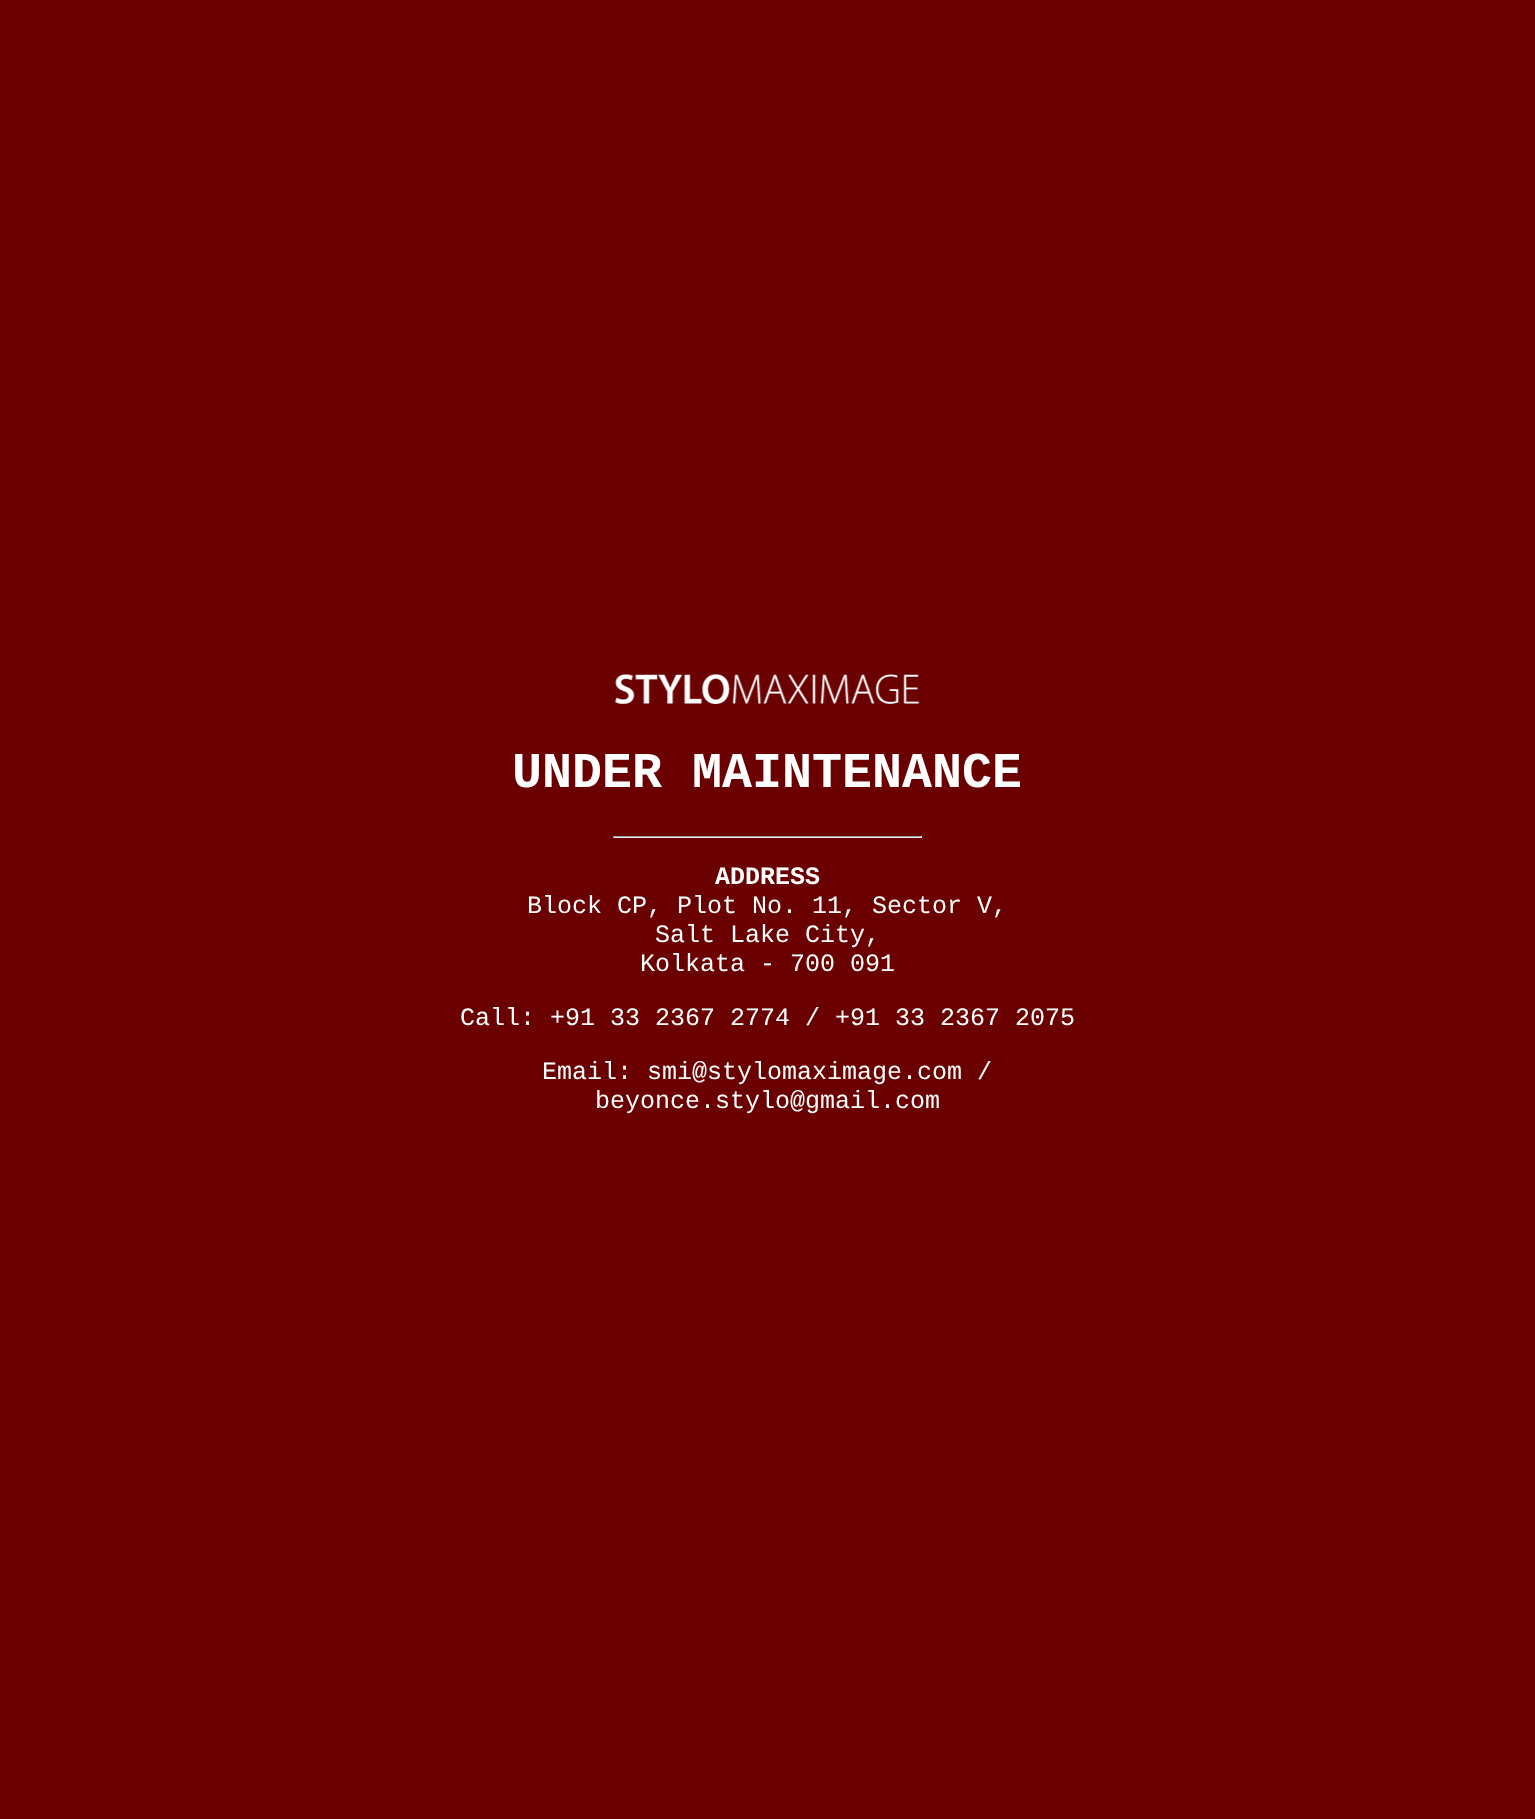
(async () => {
  const canvas = document.querySelector("canvas");
  canvas.width = 1535;
  canvas.height = 1819;
  const ctx = canvas.getContext("2d");
  ctx.miterLimit = 4;
  ctx.fontKerning = "normal";
  async function loadImage(src) {
    const img = new Image();
    img.src = src;
    await img.decode();
    return img;
  }

  ctx.fillStyle = "#6a0000";
  ctx.fillRect(0, 0, 1535, 1819);
  ctx.drawImage(await loadImage("img/1.png"), 615, 674, 305, 30);
  for (const [x, y, w, h, color] of [
    [613, 836, 309, 1, "#9f9f9f"],
    [921, 836, 1, 2, "#eeeeee"],
    [613, 837, 309, 1, "#eeeeee"],
    [613, 836, 1, 2, "#9f9f9f"],
  ]) {
    ctx.fillStyle = color;
    ctx.fillRect(x, y, w, h);
  }
  ctx.font = "bold 50px Liberation Mono";
  ctx.fillStyle = "#ffffff";
  ctx.fillText("UNDER MAINTENANCE", 512, 787);
  ctx.font = "bold 25px Liberation Mono";
  ctx.fillText("ADDRESS", 715, 884);
  ctx.font = "25px Liberation Mono";
  for (const [text, x, y] of [
    ["Block CP, Plot No. 11, Sector V,", 527, 913],
    ["Salt Lake City,", 655, 942],
    ["Kolkata - 700 091", 640, 971],
    ["Call: +91 33 2367 2774 / +91 33 2367 2075", 460, 1025],
    ["Email: smi@stylomaximage.com /", 542, 1079],
    ["beyonce.stylo@gmail.com", 595, 1108],
  ]) {
    ctx.fillText(text, x, y);
  }
})();
